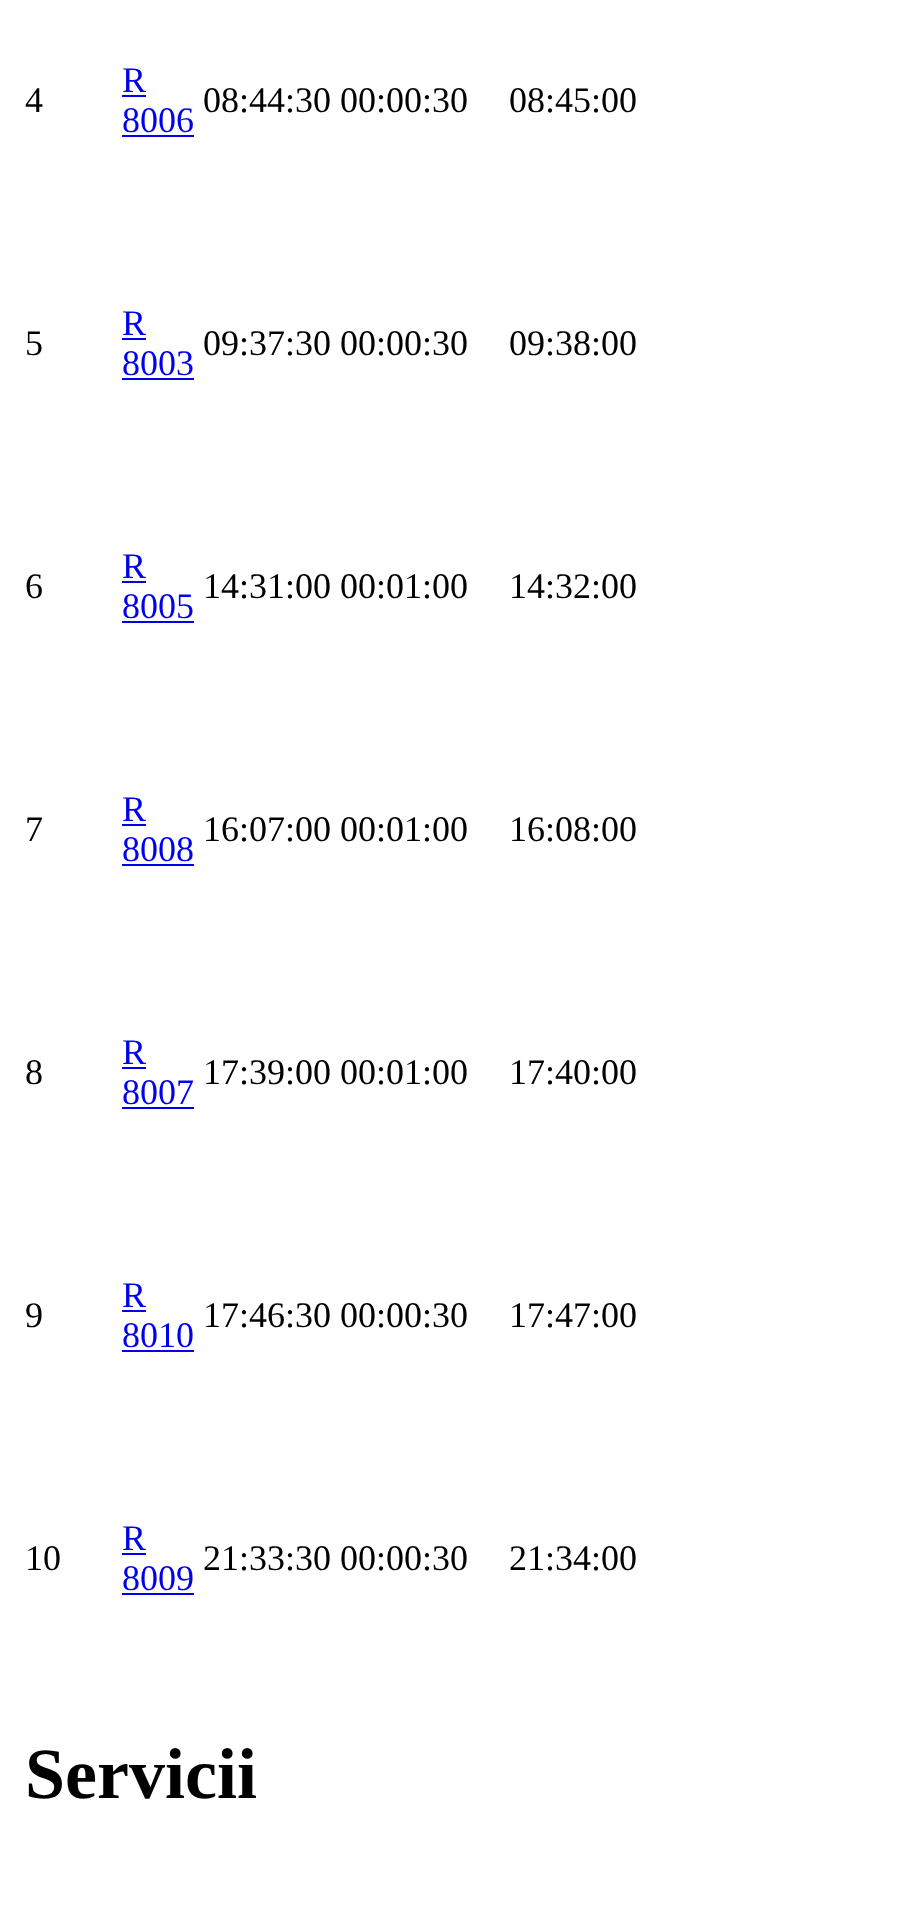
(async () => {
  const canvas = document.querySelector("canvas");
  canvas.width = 897;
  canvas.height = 1913;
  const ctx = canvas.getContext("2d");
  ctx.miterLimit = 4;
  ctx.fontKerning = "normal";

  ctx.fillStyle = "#ffffff";
  ctx.fillRect(0, 0, 897, 1913);
  for (const [x, y, w, h, color] of [
    [122, 95, 24, 2, "#0000ee"],
    [122, 135, 72, 2, "#0000ee"],
    [122, 338, 24, 2, "#0000ee"],
    [122, 378, 72, 2, "#0000ee"],
    [122, 581, 24, 2, "#0000ee"],
    [122, 621, 72, 2, "#0000ee"],
    [122, 824, 24, 2, "#0000ee"],
    [122, 864, 72, 2, "#0000ee"],
    [122, 1067, 24, 2, "#0000ee"],
    [122, 1107, 72, 2, "#0000ee"],
    [122, 1310, 24, 2, "#0000ee"],
    [122, 1350, 72, 2, "#0000ee"],
    [122, 1553, 24, 2, "#0000ee"],
    [122, 1593, 72, 2, "#0000ee"],
  ]) {
    ctx.fillStyle = color;
    ctx.fillRect(x, y, w, h);
  }
  ctx.font = "36px Liberation Serif";
  ctx.fillStyle = "#000000";
  ctx.fillText("4", 25, 112);
  ctx.fillStyle = "#0000ee";
  ctx.fillText("R", 122, 92);
  ctx.fillText("8006", 122, 132);
  ctx.fillStyle = "#000000";
  for (const [text, x, y] of [
    ["08:44:30 00:00:30", 203, 112],
    ["08:45:00", 509, 112],
    ["5", 25, 355],
  ]) {
    ctx.fillText(text, x, y);
  }
  ctx.fillStyle = "#0000ee";
  ctx.fillText("R", 122, 335);
  ctx.fillText("8003", 122, 375);
  ctx.fillStyle = "#000000";
  for (const [text, x, y] of [
    ["09:37:30 00:00:30", 203, 355],
    ["09:38:00", 509, 355],
    ["6", 25, 598],
  ]) {
    ctx.fillText(text, x, y);
  }
  ctx.fillStyle = "#0000ee";
  ctx.fillText("R", 122, 578);
  ctx.fillText("8005", 122, 618);
  ctx.fillStyle = "#000000";
  for (const [text, x, y] of [
    ["14:31:00 00:01:00", 203, 598],
    ["14:32:00", 509, 598],
    ["7", 25, 841],
  ]) {
    ctx.fillText(text, x, y);
  }
  ctx.fillStyle = "#0000ee";
  ctx.fillText("R", 122, 821);
  ctx.fillText("8008", 122, 861);
  ctx.fillStyle = "#000000";
  for (const [text, x, y] of [
    ["16:07:00 00:01:00", 203, 841],
    ["16:08:00", 509, 841],
    ["8", 25, 1084],
  ]) {
    ctx.fillText(text, x, y);
  }
  ctx.fillStyle = "#0000ee";
  ctx.fillText("R", 122, 1064);
  ctx.fillText("8007", 122, 1104);
  ctx.fillStyle = "#000000";
  for (const [text, x, y] of [
    ["17:39:00 00:01:00", 203, 1084],
    ["17:40:00", 509, 1084],
    ["9", 25, 1327],
  ]) {
    ctx.fillText(text, x, y);
  }
  ctx.fillStyle = "#0000ee";
  ctx.fillText("R", 122, 1307);
  ctx.fillText("8010", 122, 1347);
  ctx.fillStyle = "#000000";
  for (const [text, x, y] of [
    ["17:46:30 00:00:30", 203, 1327],
    ["17:47:00", 509, 1327],
    ["10", 25, 1570],
  ]) {
    ctx.fillText(text, x, y);
  }
  ctx.fillStyle = "#0000ee";
  ctx.fillText("R", 122, 1550);
  ctx.fillText("8009", 122, 1590);
  ctx.fillStyle = "#000000";
  ctx.fillText("21:33:30 00:00:30", 203, 1570);
  ctx.fillText("21:34:00", 509, 1570);
  ctx.font = "bold 72px Liberation Serif";
  ctx.fillText("Servicii", 25, 1798);
})();
